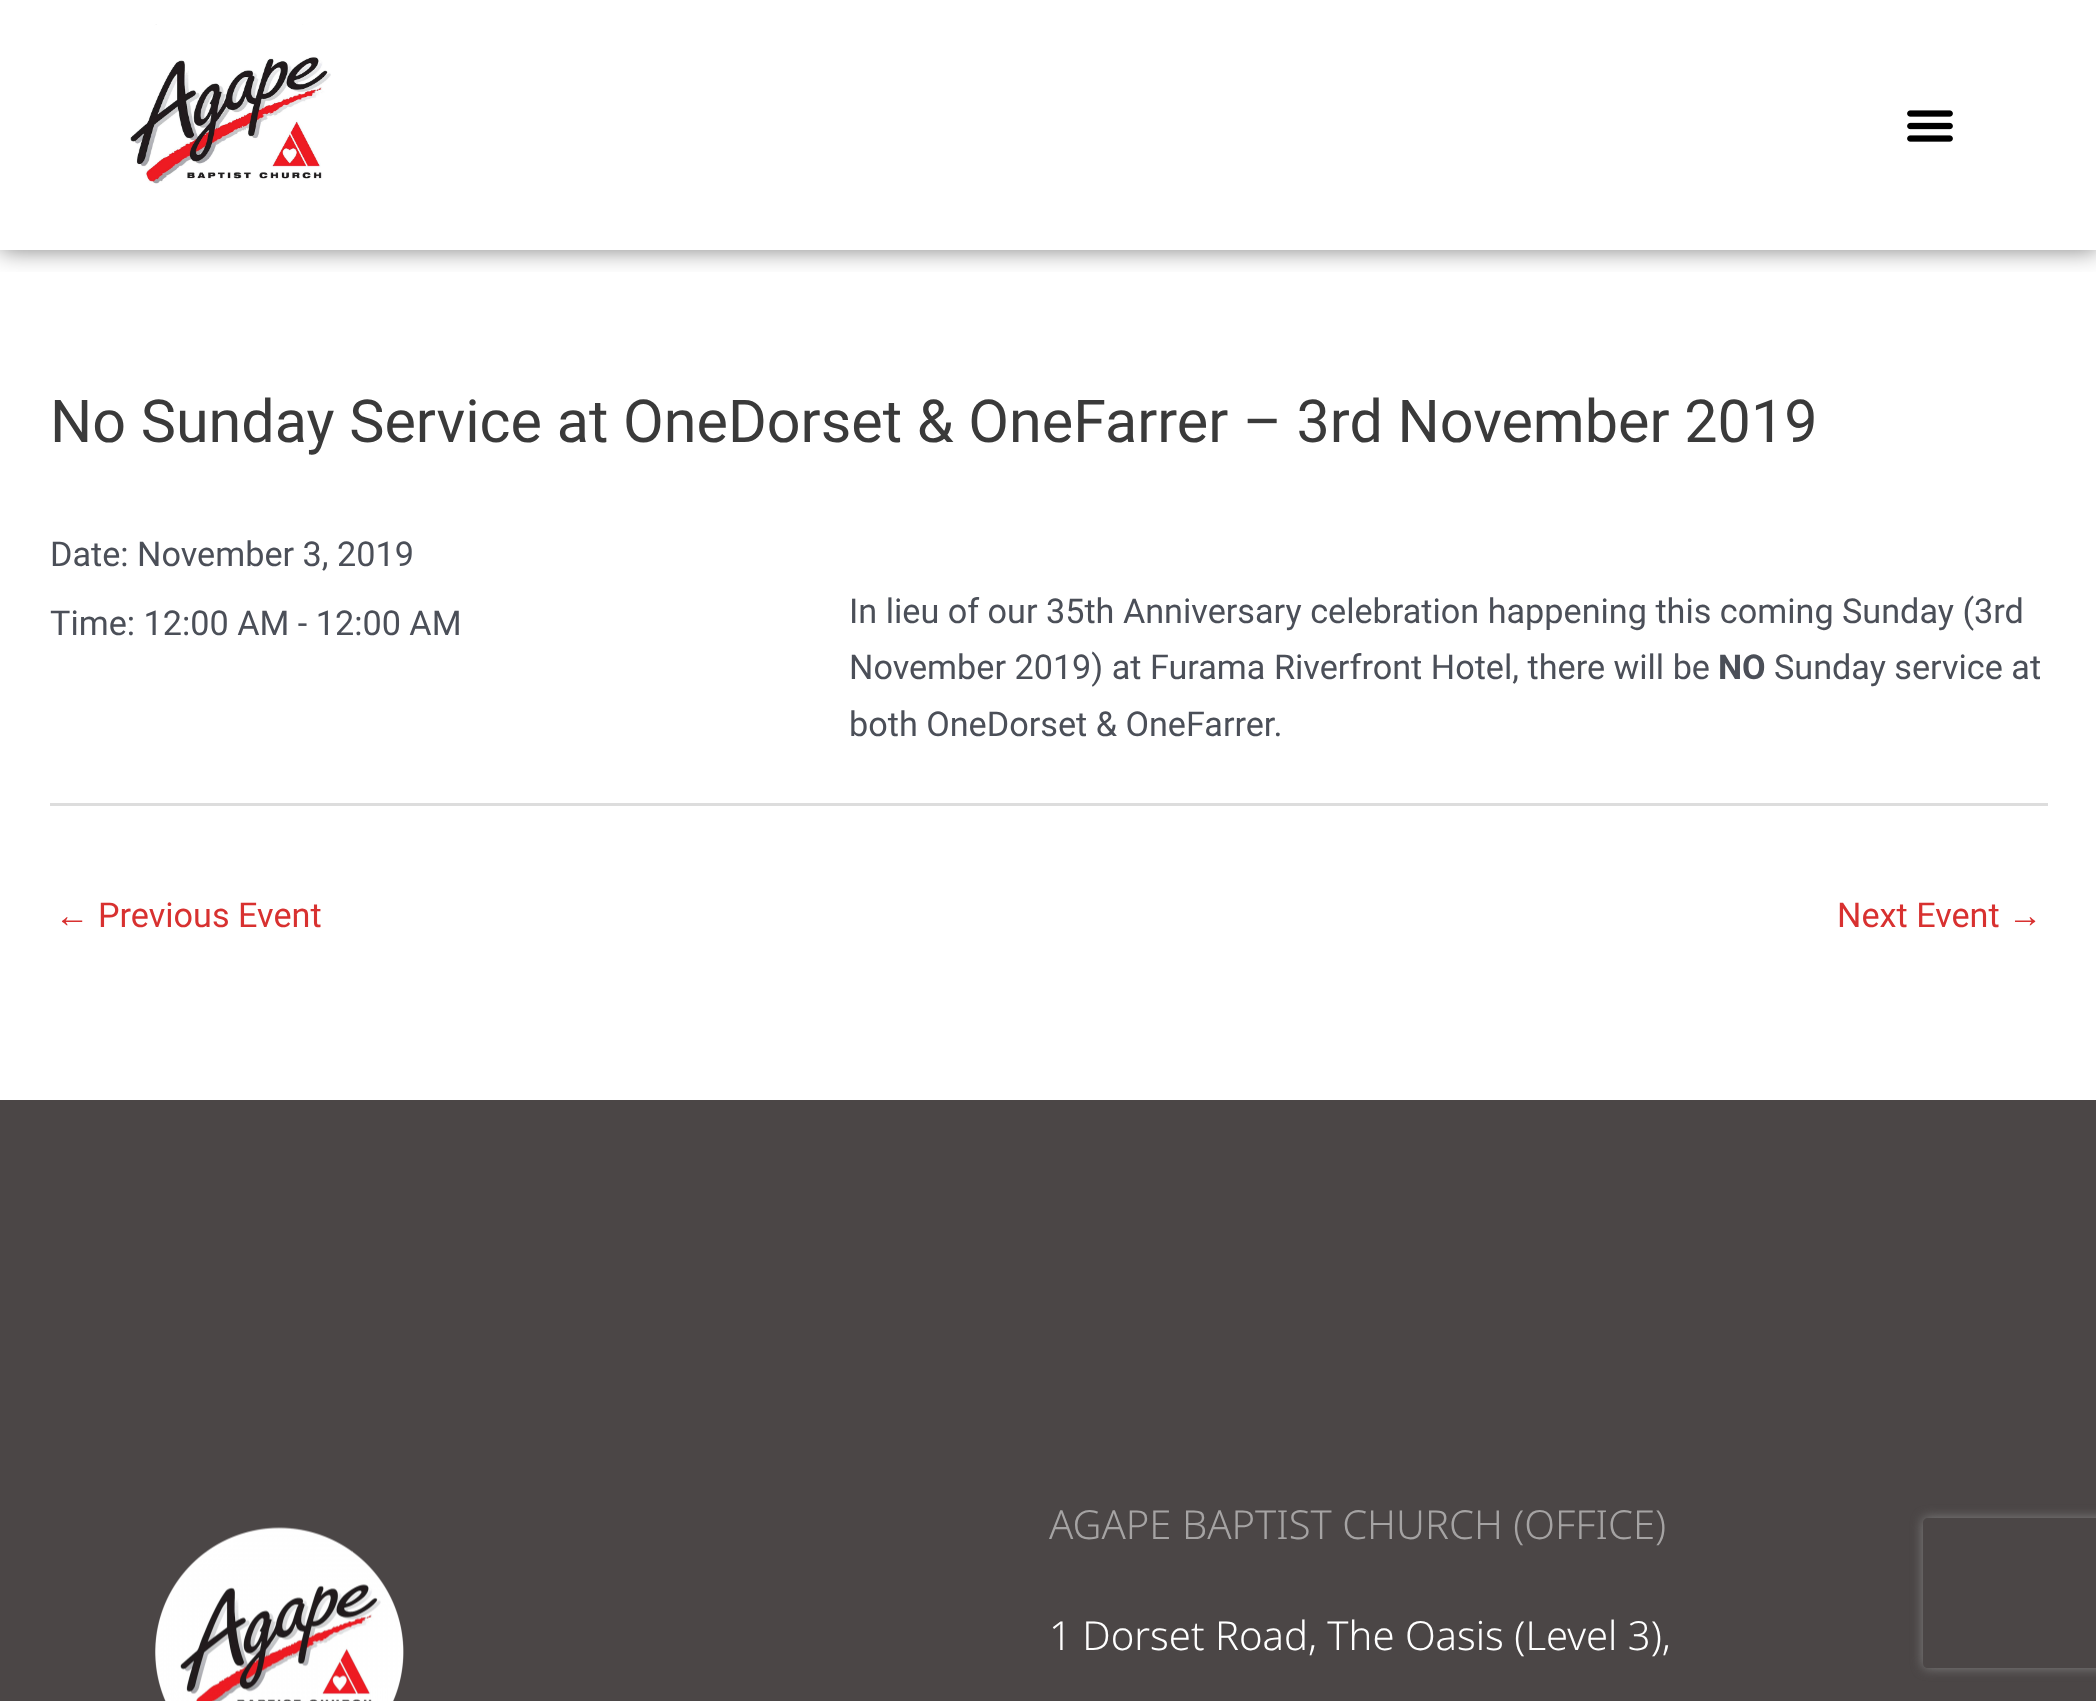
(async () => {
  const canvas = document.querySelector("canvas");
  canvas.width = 2096;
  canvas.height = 1701;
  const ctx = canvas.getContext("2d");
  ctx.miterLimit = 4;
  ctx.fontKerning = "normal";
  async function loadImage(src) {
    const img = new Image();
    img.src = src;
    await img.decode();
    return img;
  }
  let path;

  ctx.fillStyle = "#ffffff";
  ctx.fillRect(0, 0, 2096, 1701);
  ctx.save();
  ctx.beginPath();
  ctx.rect(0, 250, 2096, 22);
  ctx.clip();
  ctx.fillStyle = "rgba(0, 0, 0, 0.5)";
  ctx.filter = "blur(12.5px)";
  ctx.beginPath();
  ctx.rect(0, 0, 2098, 250);
  ctx.fill();
  ctx.filter = "none";
  ctx.restore();
  ctx.drawImage(await loadImage("img/1.png"), 130, 24, 201, 160);
  ctx.drawImage(await loadImage("img/2.png"), 1907, 110, 46, 32);
  ctx.fillStyle = "#dddddd";
  ctx.fillRect(50, 803, 1998, 3);
  ctx.fillStyle = "#4b4646";
  ctx.fillRect(0, 1100, 2096, 601);
  ctx.drawImage(await loadImage("img/3.png"), 155, 1527, 249, 174);
  ctx.save();
  path = new Path2D("M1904 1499H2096V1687H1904ZM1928 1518H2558C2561 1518 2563 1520 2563 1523V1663C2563 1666 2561 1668 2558 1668H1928C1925 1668 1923 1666 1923 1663V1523C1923 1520 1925 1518 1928 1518Z");
  ctx.clip(path, "evenodd");
  ctx.fillStyle = "#808080";
  ctx.filter = "blur(6px)";
  ctx.beginPath();
  ctx.roundRect(1923, 1518, 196, 150, 5);
  ctx.fill();
  ctx.filter = "none";
  ctx.restore();
  ctx.font = "59.25px Roboto";
  ctx.fillStyle = "#3a3a3a";
  ctx.fillText("No Sunday Service at OneDorset & OneFarrer – 3rd November 2019", 50, 442);
  ctx.font = "34.2px Roboto";
  ctx.fillStyle = "#4b4f58";
  for (const [text, x, y] of [
    ["Date: November 3, 2019", 50, 566],
    ["Time: 12:00 AM - 12:00 AM", 50, 635],
    ["In lieu of our 35th Anniversary celebration happening this coming Sunday (3rd", 849, 623],
    ["November 2019) at Furama Riverfront Hotel, there will be", 849, 679],
  ]) {
    ctx.fillText(text, x, y);
  }
  ctx.font = "bold 34.2px Roboto";
  ctx.fillText("NO", 1718, 679);
  ctx.font = "34.2px Roboto";
  ctx.fillText("Sunday service at", 1774, 679);
  ctx.fillText("both OneDorset & OneFarrer.", 849, 736);
  ctx.font = "34.2px Liberation Sans";
  ctx.fillStyle = "#d83130";
  ctx.fillText("←", 55, 927);
  ctx.font = "34.2px Roboto";
  ctx.fillText("Previous Event", 98, 927);
  ctx.fillText("Next Event", 1837, 927);
  ctx.font = "34.2px Liberation Sans";
  ctx.fillText("→", 2008, 927);
  ctx.font = "300 40px Noto Sans";
  ctx.fillStyle = "#a5a3a3";
  ctx.fillText("AGAPE BAPTIST CHURCH (OFFICE)", 1049, 1539);
  ctx.fillStyle = "#ffffff";
  ctx.fillText("1 Dorset Road, The Oasis (Level 3),", 1049, 1650);
})();
